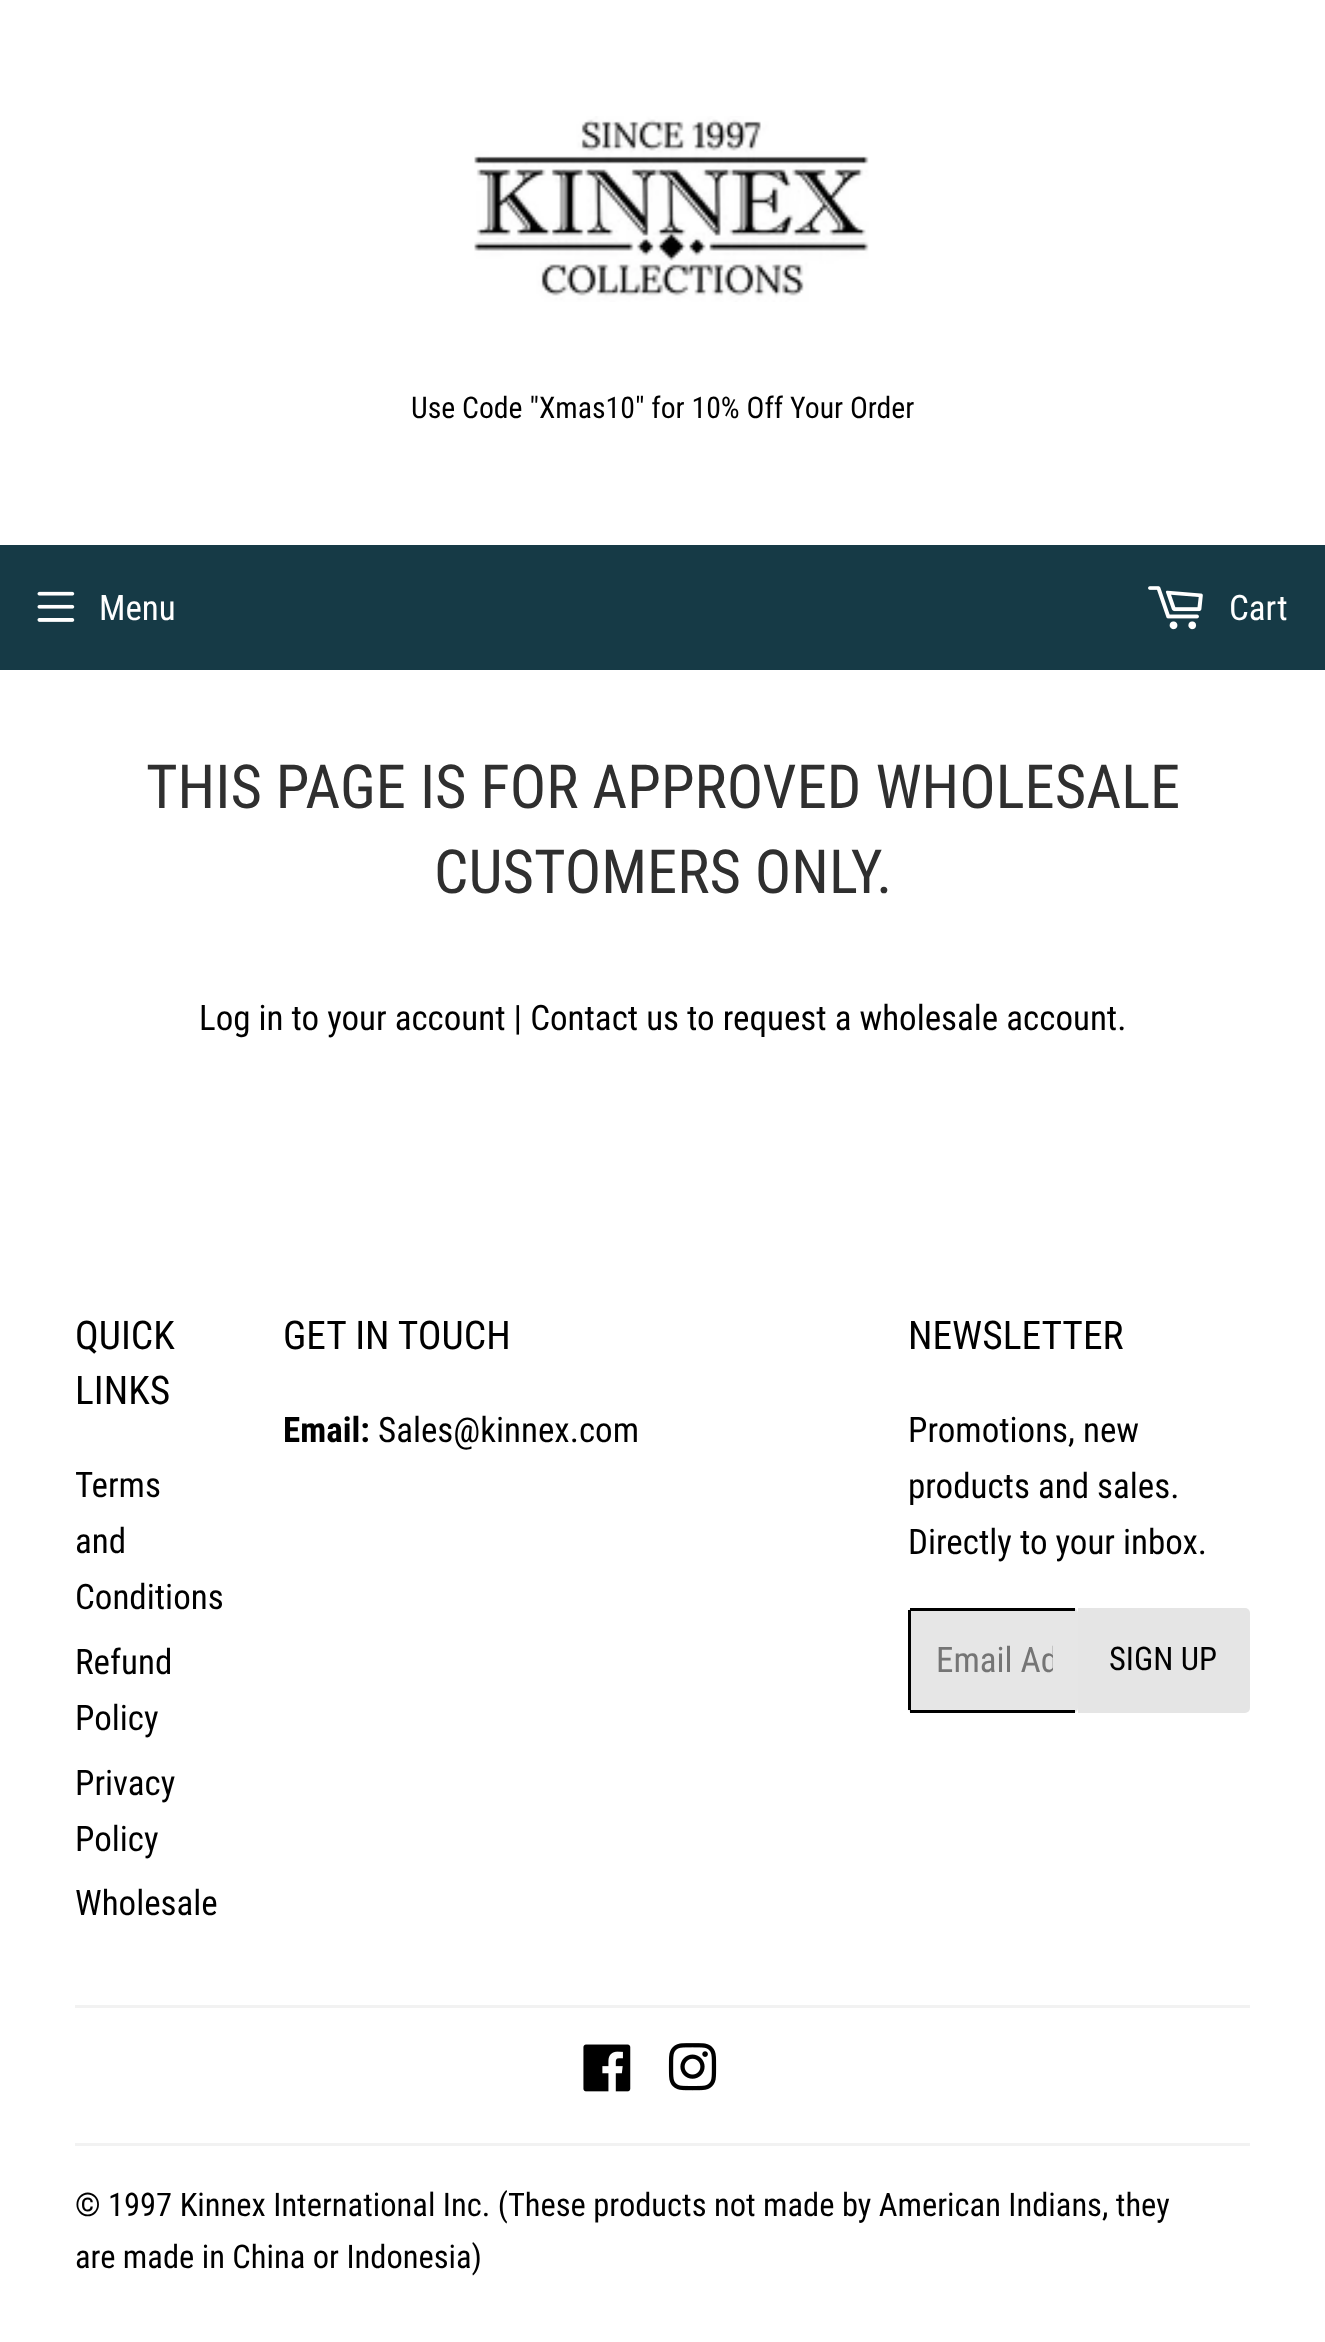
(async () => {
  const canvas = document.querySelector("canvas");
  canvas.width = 1325;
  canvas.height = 2342;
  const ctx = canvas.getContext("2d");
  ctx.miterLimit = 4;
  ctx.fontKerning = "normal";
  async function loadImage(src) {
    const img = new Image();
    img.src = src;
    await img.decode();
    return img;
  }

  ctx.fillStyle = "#ffffff";
  ctx.fillRect(0, 0, 1325, 2342);
  ctx.drawImage(await loadImage("img/1.png"), 474, 116, 395, 186);
  ctx.fillStyle = "#163a46";
  ctx.fillRect(0, 545, 1325, 125);
  ctx.drawImage(await loadImage("img/2.png"), 37, 591, 38, 31);
  ctx.drawImage(await loadImage("img/3.png"), 1148, 586, 55, 44);
  ctx.fillStyle = "#e6e6e6";
  ctx.beginPath();
  ctx.roundRect(908, 1608, 170, 105, 5);
  ctx.fill();
  for (const [x, y, w, h, color] of [
    [910, 1608, 165, 3, "#000000"],
    [910, 1710, 165, 3, "#000000"],
    [908, 1610, 3, 100, "#000000"],
  ]) {
    ctx.fillStyle = color;
    ctx.fillRect(x, y, w, h);
  }
  ctx.fillStyle = "#e5e5e5";
  ctx.beginPath();
  ctx.roundRect(1078, 1608, 172, 105, [0, 5, 5, 0]);
  ctx.fill();
  ctx.fillStyle = "#f2f2f2";
  ctx.fillRect(75, 2005, 1175, 3);
  ctx.drawImage(await loadImage("img/4.png"), 583, 2044, 48, 48);
  ctx.drawImage(await loadImage("img/5.png"), 668, 2043, 49, 48);
  ctx.fillRect(75, 2143, 1175, 3);
  ctx.font = "29.75px Roboto Condensed";
  ctx.fillStyle = "#000000";
  ctx.fillText("Use Code \"Xmas10\" for 10% Off Your Order", 411, 418);
  ctx.font = "35px Roboto Condensed";
  ctx.fillStyle = "#ffffff";
  ctx.fillText("Menu", 99, 620);
  ctx.fillText("Cart", 1229, 620);
  ctx.font = "60.7px Roboto Condensed";
  ctx.fillStyle = "#2f2f2f";
  ctx.fillText("THIS PAGE IS FOR APPROVED WHOLESALE", 146, 808);
  ctx.fillText("CUSTOMERS ONLY.", 434, 893);
  ctx.font = "35px Roboto Condensed";
  ctx.fillStyle = "#000000";
  ctx.fillText("Log in to your account | Contact us to request a wholesale account.", 199, 1030);
  ctx.font = "39.5px Roboto Condensed";
  ctx.fillText("QUICK", 75, 1349);
  ctx.fillText("LINKS", 75, 1404);
  ctx.font = "35px Roboto Condensed";
  for (const [text, x, y] of [
    ["Terms", 75, 1497],
    ["and", 75, 1553],
    ["Conditions", 75, 1609],
    ["Refund", 75, 1674],
    ["Policy", 75, 1730],
    ["Privacy", 75, 1795],
    ["Policy", 75, 1851],
    ["Wholesale", 75, 1915],
  ]) {
    ctx.fillText(text, x, y);
  }
  ctx.font = "39.5px Roboto Condensed";
  ctx.fillText("GET IN TOUCH", 283, 1349);
  ctx.font = "bold 35px Roboto Condensed";
  ctx.fillText("Email:", 283, 1442);
  ctx.font = "35px Roboto Condensed";
  ctx.fillText("Sales@kinnex.com", 378, 1442);
  ctx.font = "39.5px Roboto Condensed";
  ctx.fillText("NEWSLETTER", 908, 1349);
  ctx.font = "35px Roboto Condensed";
  for (const [text, x, y] of [
    ["Promotions, new", 908, 1442],
    ["products and sales.", 908, 1498],
    ["Directly to your inbox.", 908, 1554],
  ]) {
    ctx.fillText(text, x, y);
  }
  ctx.save();
  ctx.beginPath();
  ctx.rect(935, 1640, 118, 40);
  ctx.clip();
  ctx.fillStyle = "#757575";
  ctx.fillText("Email Ad", 936, 1672);
  ctx.restore();
  ctx.font = "32.5px Roboto Condensed";
  for (const [text, x, y] of [
    ["SIGN UP", 1109, 1670],
    ["© 1997 Kinnex International Inc. (These products not made by American Indians, they", 75, 2216],
    ["are made in China or Indonesia)", 75, 2268],
  ]) {
    ctx.fillText(text, x, y);
  }
})();
